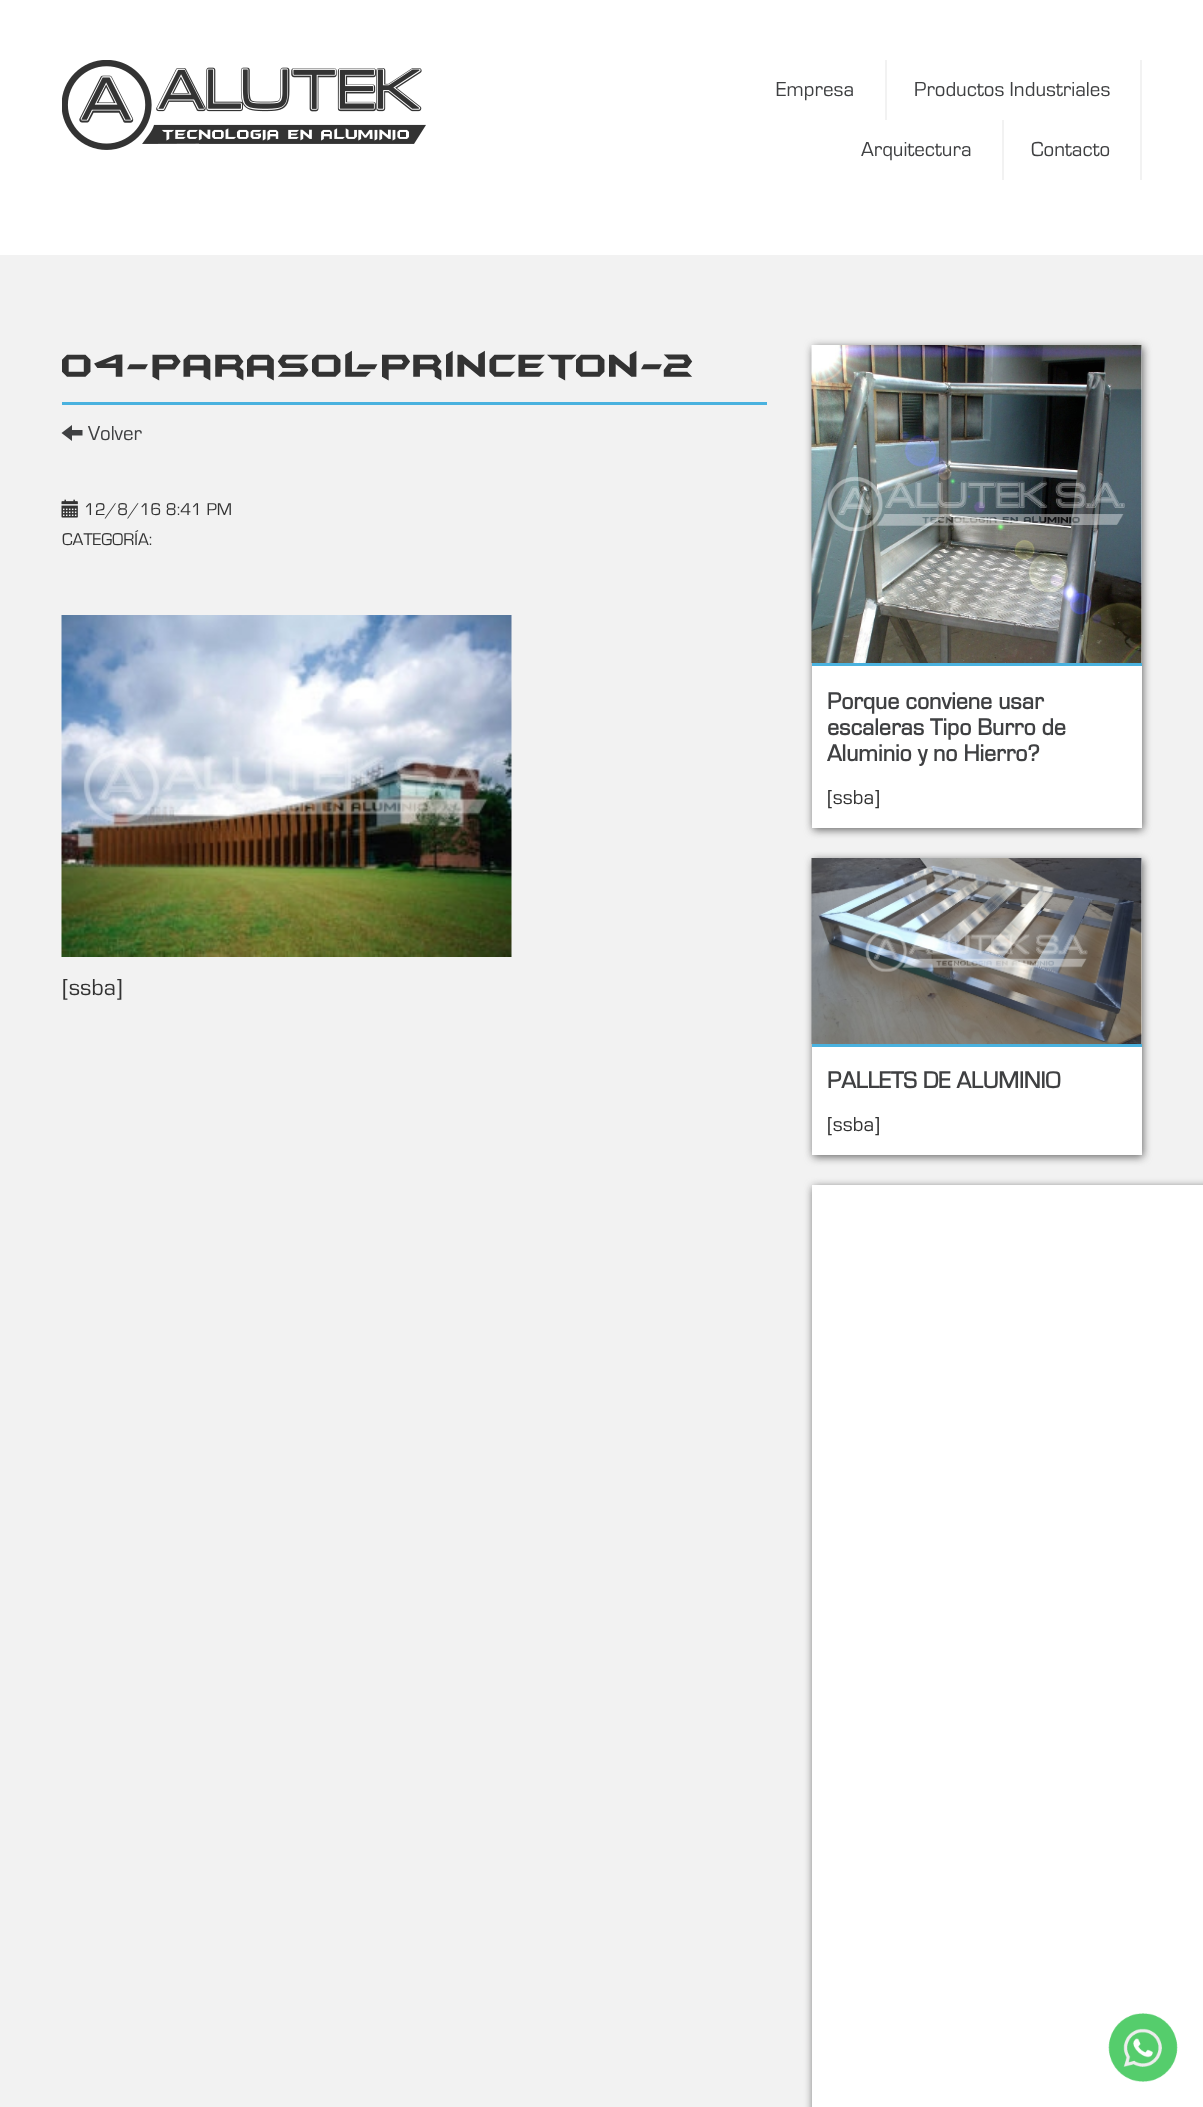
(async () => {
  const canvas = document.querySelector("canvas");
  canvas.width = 1203;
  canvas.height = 2107;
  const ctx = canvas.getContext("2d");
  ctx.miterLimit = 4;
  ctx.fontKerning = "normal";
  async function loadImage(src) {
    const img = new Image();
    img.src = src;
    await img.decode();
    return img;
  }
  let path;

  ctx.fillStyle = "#ffffff";
  ctx.fillRect(0, 0, 1203, 2107);
  ctx.drawImage(await loadImage("img/1.png"), 62, 60, 364, 90);
  for (const [x, y, w, h, color] of [
    [885, 60, 2, 60, "#f2f2f2"],
    [1140, 60, 2, 120, "#f2f2f2"],
    [1002, 120, 2, 60, "#f2f2f2"],
    [0, 255, 1203, 1852, "#f2f2f2"],
    [62, 402, 705, 3, "#4ab2df"],
  ]) {
    ctx.fillStyle = color;
    ctx.fillRect(x, y, w, h);
  }
  ctx.fillStyle = "#3f4042";
  path = new Path2D("M61.5 433L72 425V430H82.5V435.5H72V441Z");
  ctx.fill(path);
  ctx.drawImage(await loadImage("img/2.png"), 61, 499, 17, 19);
  ctx.drawImage(await loadImage("img/3.png"), 61, 615, 451, 342);
  ctx.fillStyle = "#666666";
  ctx.filter = "blur(4px)";
  ctx.beginPath();
  ctx.rect(813, 347, 330, 483);
  ctx.fill();
  ctx.filter = "none";
  ctx.fillStyle = "#ffffff";
  ctx.fillRect(812, 345, 330, 483);
  ctx.drawImage(await loadImage("img/4.png"), 811, 345, 331, 318);
  ctx.fillStyle = "#4ab2df";
  ctx.fillRect(812, 663, 330, 3);
  ctx.fillStyle = "#666666";
  ctx.filter = "blur(4px)";
  ctx.beginPath();
  ctx.rect(813, 860, 330, 297);
  ctx.fill();
  ctx.filter = "none";
  ctx.fillStyle = "#ffffff";
  ctx.fillRect(812, 858, 330, 297);
  ctx.drawImage(await loadImage("img/5.png"), 811, 858, 331, 186);
  ctx.fillStyle = "#4ab2df";
  ctx.fillRect(812, 1044, 330, 3);
  ctx.fillStyle = "#666666";
  ctx.filter = "blur(4px)";
  ctx.beginPath();
  ctx.rect(813, 1187, 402, 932);
  ctx.fill();
  ctx.filter = "none";
  ctx.fillStyle = "#ffffff";
  ctx.fillRect(812, 1185, 391, 922);
  ctx.drawImage(await loadImage("img/6.png"), 1108, 2013, 70, 69);
  ctx.font = "21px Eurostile";
  ctx.fillStyle = "#3f4042";
  for (const [text, x, y] of [
    ["Empresa", 776, 96],
    ["Productos Industriales", 914, 96],
    ["Arquitectura", 861, 156],
    ["Contacto", 1031, 156],
  ]) {
    ctx.fillText(text, x, y);
  }
  ctx.font = "37.5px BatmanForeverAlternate";
  ctx.fillStyle = "#333333";
  ctx.fillText("04-parasol-princeton-2", 62, 377);
  ctx.font = "21px Eurostile";
  ctx.fillStyle = "#3f4042";
  ctx.fillText("Volver", 88, 440);
  ctx.font = "17.75px Eurostile";
  ctx.fillStyle = "#333333";
  ctx.fillText("12/8/16 8:41 PM", 84, 515);
  ctx.fillText("CATEGORÍA:", 62, 545);
  ctx.font = "24px Eurostile";
  ctx.fillText("[ssba]", 62, 995);
  ctx.font = "bold 24px Eurostile";
  ctx.fillStyle = "#3f4042";
  for (const [text, x, y] of [
    ["Porque conviene usar", 827, 709],
    ["escaleras Tipo Burro de", 827, 735],
    ["Aluminio y no Hierro?", 827, 761],
  ]) {
    ctx.fillText(text, x, y);
  }
  ctx.font = "21px Eurostile";
  ctx.fillStyle = "#333333";
  ctx.fillText("[ssba]", 827, 804);
  ctx.font = "bold 24px Eurostile";
  ctx.fillStyle = "#3f4042";
  ctx.fillText("PALLETS DE ALUMINIO", 827, 1088);
  ctx.font = "21px Eurostile";
  ctx.fillStyle = "#333333";
  ctx.fillText("[ssba]", 827, 1131);
})();
